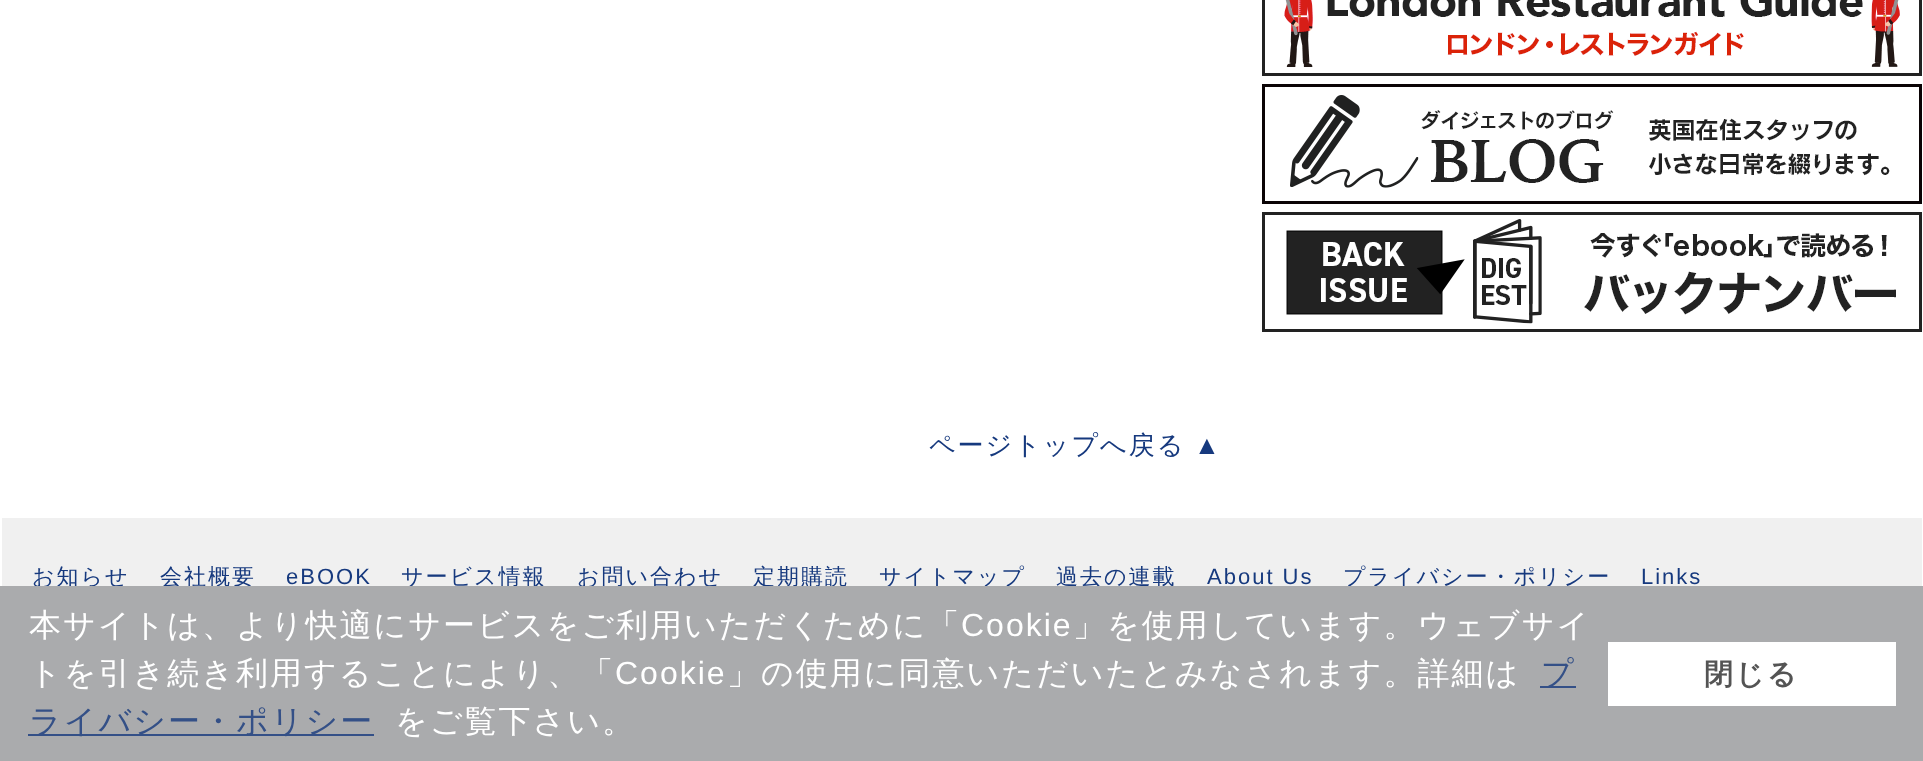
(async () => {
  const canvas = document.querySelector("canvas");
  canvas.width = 1923;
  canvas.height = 761;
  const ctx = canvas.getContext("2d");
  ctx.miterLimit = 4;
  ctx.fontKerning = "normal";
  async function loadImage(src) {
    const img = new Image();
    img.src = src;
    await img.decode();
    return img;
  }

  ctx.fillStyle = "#ffffff";
  ctx.fillRect(0, 0, 1923, 761);
  ctx.drawImage(await loadImage("img/1.png"), 1262, 0, 660, 76);
  ctx.drawImage(await loadImage("img/2.png"), 1262, 84, 660, 120);
  ctx.drawImage(await loadImage("img/3.png"), 1262, 212, 660, 120);
  ctx.fillStyle = "#f0f0f0";
  ctx.fillRect(2, 518, 1920, 68);
  ctx.letterSpacing = "2px";
  ctx.font = "500 26px WenQuanYi Zen Hei";
  ctx.fillStyle = "#16397e";
  ctx.fillText("ページトップへ戻る", 929, 454);
  ctx.font = "26px Liberation Sans";
  ctx.fillText("▲", 1194, 454);
  ctx.font = "500 22px WenQuanYi Zen Hei";
  ctx.fillText("お知らせ", 32, 584);
  ctx.fillText("会社概要", 160, 584);
  ctx.font = "22px Liberation Sans";
  ctx.fillText("eBOOK", 286, 584);
  ctx.font = "500 22px WenQuanYi Zen Hei";
  for (const [text, x, y] of [
    ["サービス情報", 401, 584],
    ["お問い合わせ", 577, 584],
    ["定期購読", 753, 584],
    ["サイトマップ", 879, 584],
    ["過去の連載", 1056, 584],
  ]) {
    ctx.fillText(text, x, y);
  }
  ctx.font = "22px Liberation Sans";
  ctx.fillText("About Us", 1207, 584);
  ctx.font = "500 22px WenQuanYi Zen Hei";
  ctx.fillText("プライバシー・ポリシー", 1343, 584);
  ctx.font = "22px Liberation Sans";
  ctx.fillText("Links", 1641, 584);
  ctx.fillStyle = "#aaabad";
  ctx.fillRect(0, 586, 1923, 175);
  ctx.font = "500 32px WenQuanYi Zen Hei";
  ctx.fillStyle = "#ffffff";
  ctx.fillText("本サイトは、より快適にサービスをご利用いただくために「", 29, 636);
  ctx.font = "32px Liberation Sans";
  ctx.fillText("Cookie", 961, 636);
  ctx.font = "500 32px WenQuanYi Zen Hei";
  ctx.fillText("」を使用しています。ウェブサイ", 1073, 636);
  ctx.fillText("トを引き続き利用することにより、「", 29, 684);
  ctx.font = "32px Liberation Sans";
  ctx.fillText("Cookie", 615, 684);
  ctx.font = "500 32px WenQuanYi Zen Hei";
  ctx.fillText("」の使用に同意いただいたとみなされます。詳細は", 727, 684);
  ctx.fillStyle = "#345087";
  ctx.fillRect(1540, 686, 36, 2);
  ctx.fillText("プ", 1541, 684);
  ctx.fillRect(28, 734, 346, 2);
  ctx.fillText("ライバシー・ポリシー", 29, 732);
  ctx.fillStyle = "#ffffff";
  ctx.fillText("をご覧下さい。", 395, 732);
  ctx.fillRect(1608, 642, 288, 64);
  ctx.font = "bold 29px WenQuanYi Zen Hei";
  ctx.fillStyle = "#545454";
  ctx.fillText("閉じる", 1704, 684);
})();
